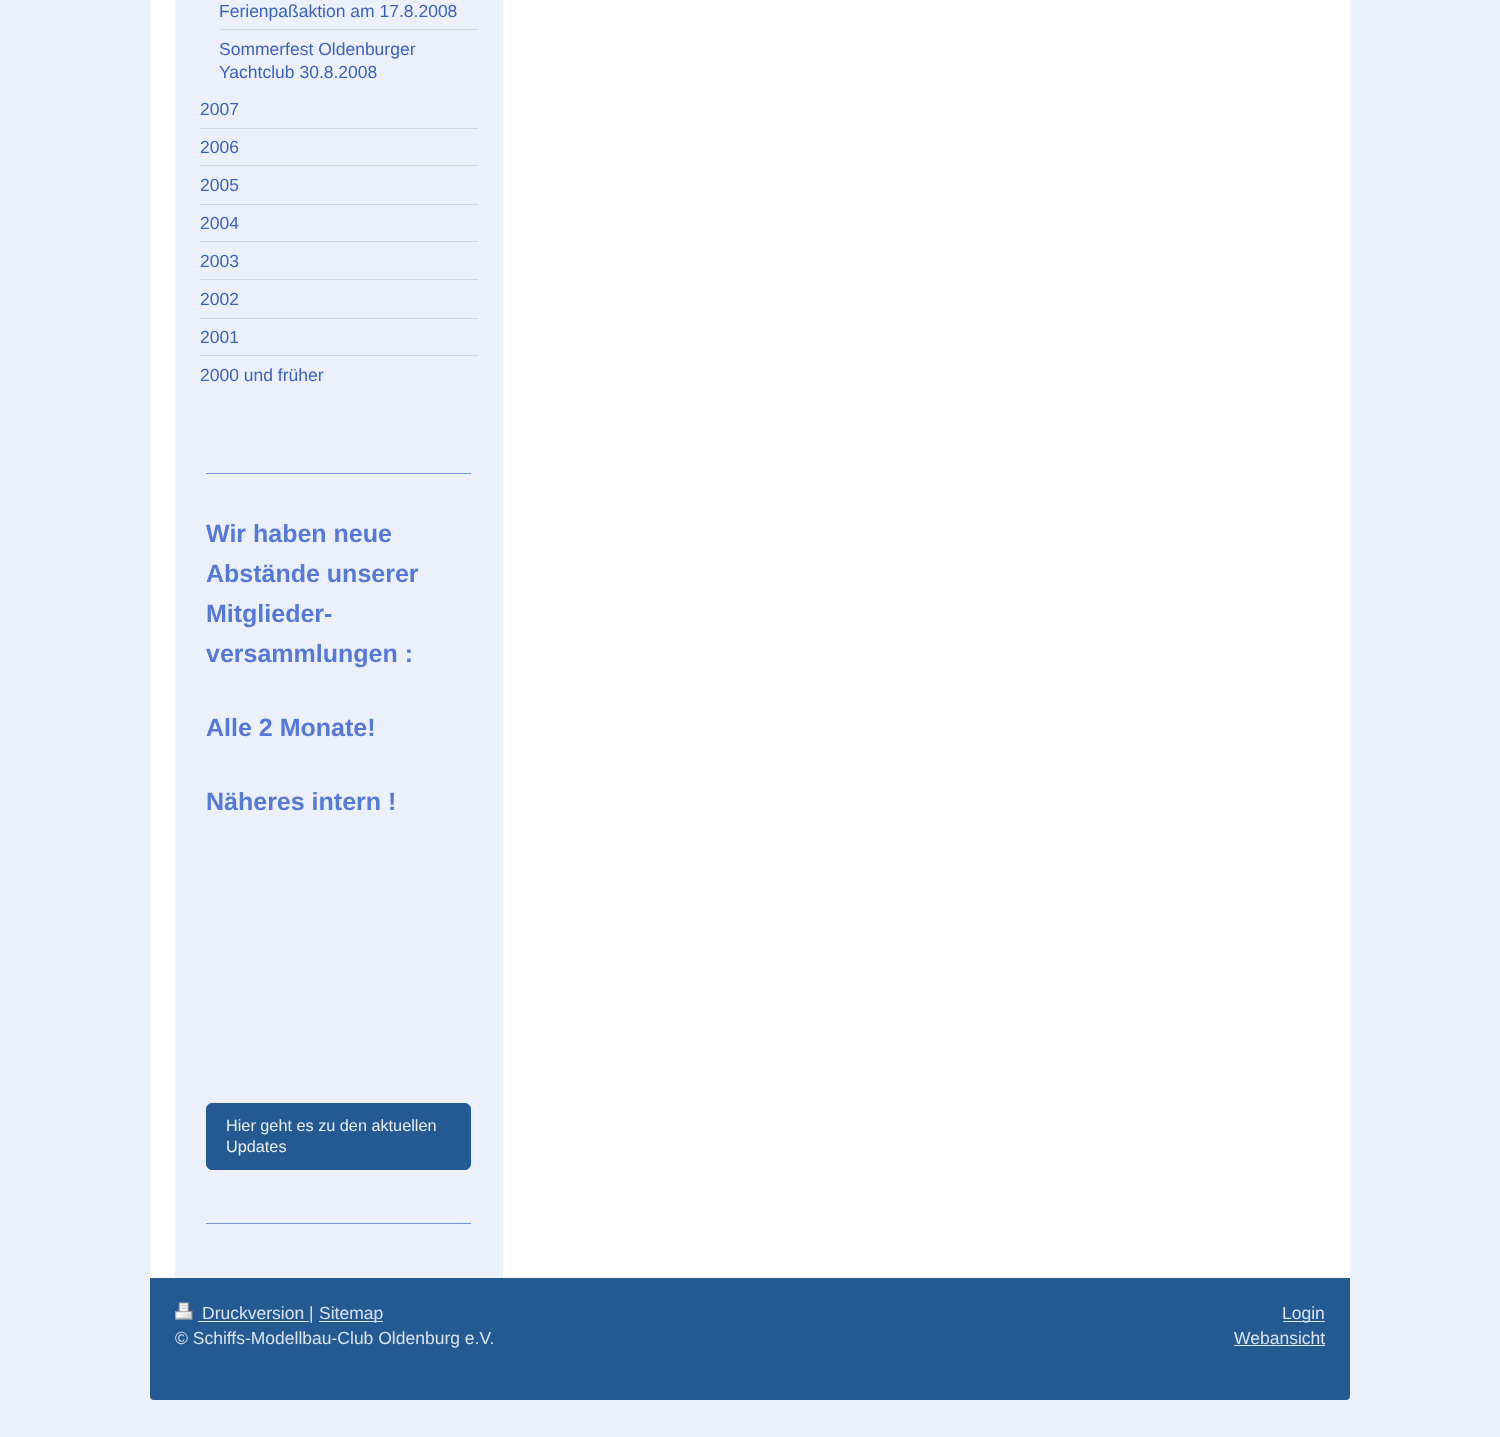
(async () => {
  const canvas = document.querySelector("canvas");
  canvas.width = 1500;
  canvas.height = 1437;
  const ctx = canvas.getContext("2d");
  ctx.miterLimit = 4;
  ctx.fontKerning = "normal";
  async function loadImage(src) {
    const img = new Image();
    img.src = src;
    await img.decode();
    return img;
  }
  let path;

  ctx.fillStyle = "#ecf0fb";
  ctx.fillRect(0, 0, 1500, 1437);
  ctx.fillStyle = "#ffffff";
  path = new Path2D("M150-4H1350V1396C1350 1398 1348 1400 1346 1400H154C152 1400 150 1398 150 1396Z");
  ctx.fill(path);
  for (const [x, y, w, h, color] of [
    [175, 0, 328, 1278, "#ecf0fb"],
    [220, 29, 258, 1, "#d4d8e2"],
    [200, 128, 278, 1, "#d4d8e2"],
    [200, 165, 278, 1, "#d4d8e2"],
    [200, 204, 278, 1, "#d4d8e2"],
    [200, 241, 278, 1, "#d4d8e2"],
    [200, 279, 278, 1, "#d4d8e2"],
    [200, 318, 278, 1, "#d4d8e2"],
    [200, 355, 278, 1, "#d4d8e2"],
    [206, 473, 265, 1, "#7a96e3"],
  ]) {
    ctx.fillStyle = color;
    ctx.fillRect(x, y, w, h);
  }
  ctx.fillStyle = "#245992";
  ctx.beginPath();
  ctx.roundRect(206.5, 1103.5, 264, 66, 5.5);
  ctx.fill();
  ctx.strokeStyle = "#245992";
  ctx.stroke();
  ctx.fillStyle = "#7a96e3";
  ctx.fillRect(206, 1223, 265, 1);
  ctx.fillStyle = "#245992";
  ctx.beginPath();
  ctx.roundRect(150, 1278, 1200, 122, [0, 0, 4, 4]);
  ctx.fill();
  ctx.drawImage(await loadImage("img/1.png"), 175, 1302, 18, 18);
  for (const [x, y, w, h, color] of [
    [198, 1321, 111, 1, "#d9e4f0"],
    [319, 1321, 64, 1, "#d9e4f0"],
    [1283, 1321, 42, 1, "#d9e4f0"],
    [1234, 1345, 91, 1, "#d9e4f0"],
  ]) {
    ctx.fillStyle = color;
    ctx.fillRect(x, y, w, h);
  }
  ctx.font = "17.5px Liberation Sans";
  ctx.fillStyle = "#3c61c6";
  for (const [text, x, y] of [
    ["Ferienpaßaktion am 17.8.2008", 219, 17],
    ["Sommerfest Oldenburger", 219, 55],
    ["Yachtclub 30.8.2008", 219, 78],
    ["2007", 200, 115],
    ["2006", 200, 153],
    ["2005", 200, 191],
    ["2004", 200, 229],
    ["2003", 200, 267],
    ["2002", 200, 305],
    ["2001", 200, 343],
    ["2000 und früher", 200, 381],
  ]) {
    ctx.fillText(text, x, y);
  }
  ctx.font = "bold 25px Liberation Sans";
  ctx.fillStyle = "#5478db";
  for (const [text, x, y] of [
    ["Wir haben neue", 206, 542],
    ["Abstände unserer", 206, 582],
    ["Mitglieder-", 206, 622],
    ["versammlungen :", 206, 662],
    ["Alle 2 Monate!", 206, 736],
    ["Näheres intern !", 206, 810],
  ]) {
    ctx.fillText(text, x, y);
  }
  ctx.font = "16.25px Liberation Sans";
  ctx.fillStyle = "#e9eef4";
  ctx.fillText("Hier geht es zu den aktuellen", 226, 1131);
  ctx.fillText("Updates", 226, 1152);
  ctx.font = "17.5px Liberation Sans";
  ctx.fillStyle = "#d9e4f0";
  for (const [text, x, y] of [
    ["Druckversion |", 202, 1319],
    ["Sitemap", 319, 1319],
    ["© Schiffs-Modellbau-Club Oldenburg e.V.", 175, 1344],
    ["Login", 1282, 1319],
    ["Webansicht", 1234, 1344],
  ]) {
    ctx.fillText(text, x, y);
  }
})();
